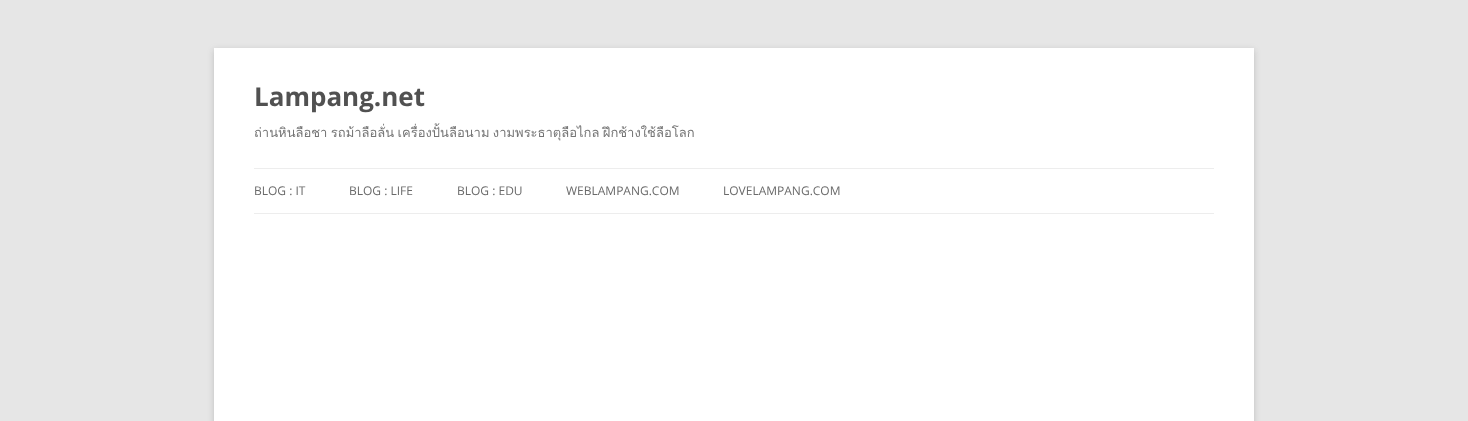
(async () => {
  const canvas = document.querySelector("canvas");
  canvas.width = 1468;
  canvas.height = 421;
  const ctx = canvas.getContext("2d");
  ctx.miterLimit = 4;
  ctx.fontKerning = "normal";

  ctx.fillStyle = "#e6e6e6";
  ctx.fillRect(0, 0, 1468, 421);
  ctx.fillStyle = "rgba(100, 100, 100, 0.3)";
  ctx.filter = "blur(3px)";
  ctx.beginPath();
  ctx.rect(214, 50, 1040, 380);
  ctx.fill();
  ctx.filter = "none";
  for (const [x, y, w, h, color] of [
    [214, 48, 1040, 373, "#ffffff"],
    [254, 168, 960, 1, "#ededed"],
    [254, 213, 960, 1, "#ededed"],
  ]) {
    ctx.fillStyle = color;
    ctx.fillRect(x, y, w, h);
  }
  ctx.font = "bold 26px Open Sans";
  ctx.fillStyle = "#515151";
  ctx.fillText("Lampang.net", 254, 106);
  ctx.wordSpacing = "-1px";
  ctx.font = "13px Loma";
  ctx.fillStyle = "#757575";
  ctx.fillText("ถ่านหินลือชา รถม้าลือลั่น เครื่องปั้นลือนาม งามพระธาตุลือไกล ฝึกช้างใช้ลือโลก", 254, 137);
  ctx.wordSpacing = "0px";
  ctx.font = "12px Open Sans";
  ctx.fillStyle = "#6a6a6a";
  for (const [text, x, y] of [
    ["BLOG : IT", 254, 195],
    ["BLOG : LIFE", 349, 195],
    ["BLOG : EDU", 457, 195],
    ["WEBLAMPANG.COM", 566, 195],
    ["LOVELAMPANG.COM", 723, 195],
  ]) {
    ctx.fillText(text, x, y);
  }
})();
